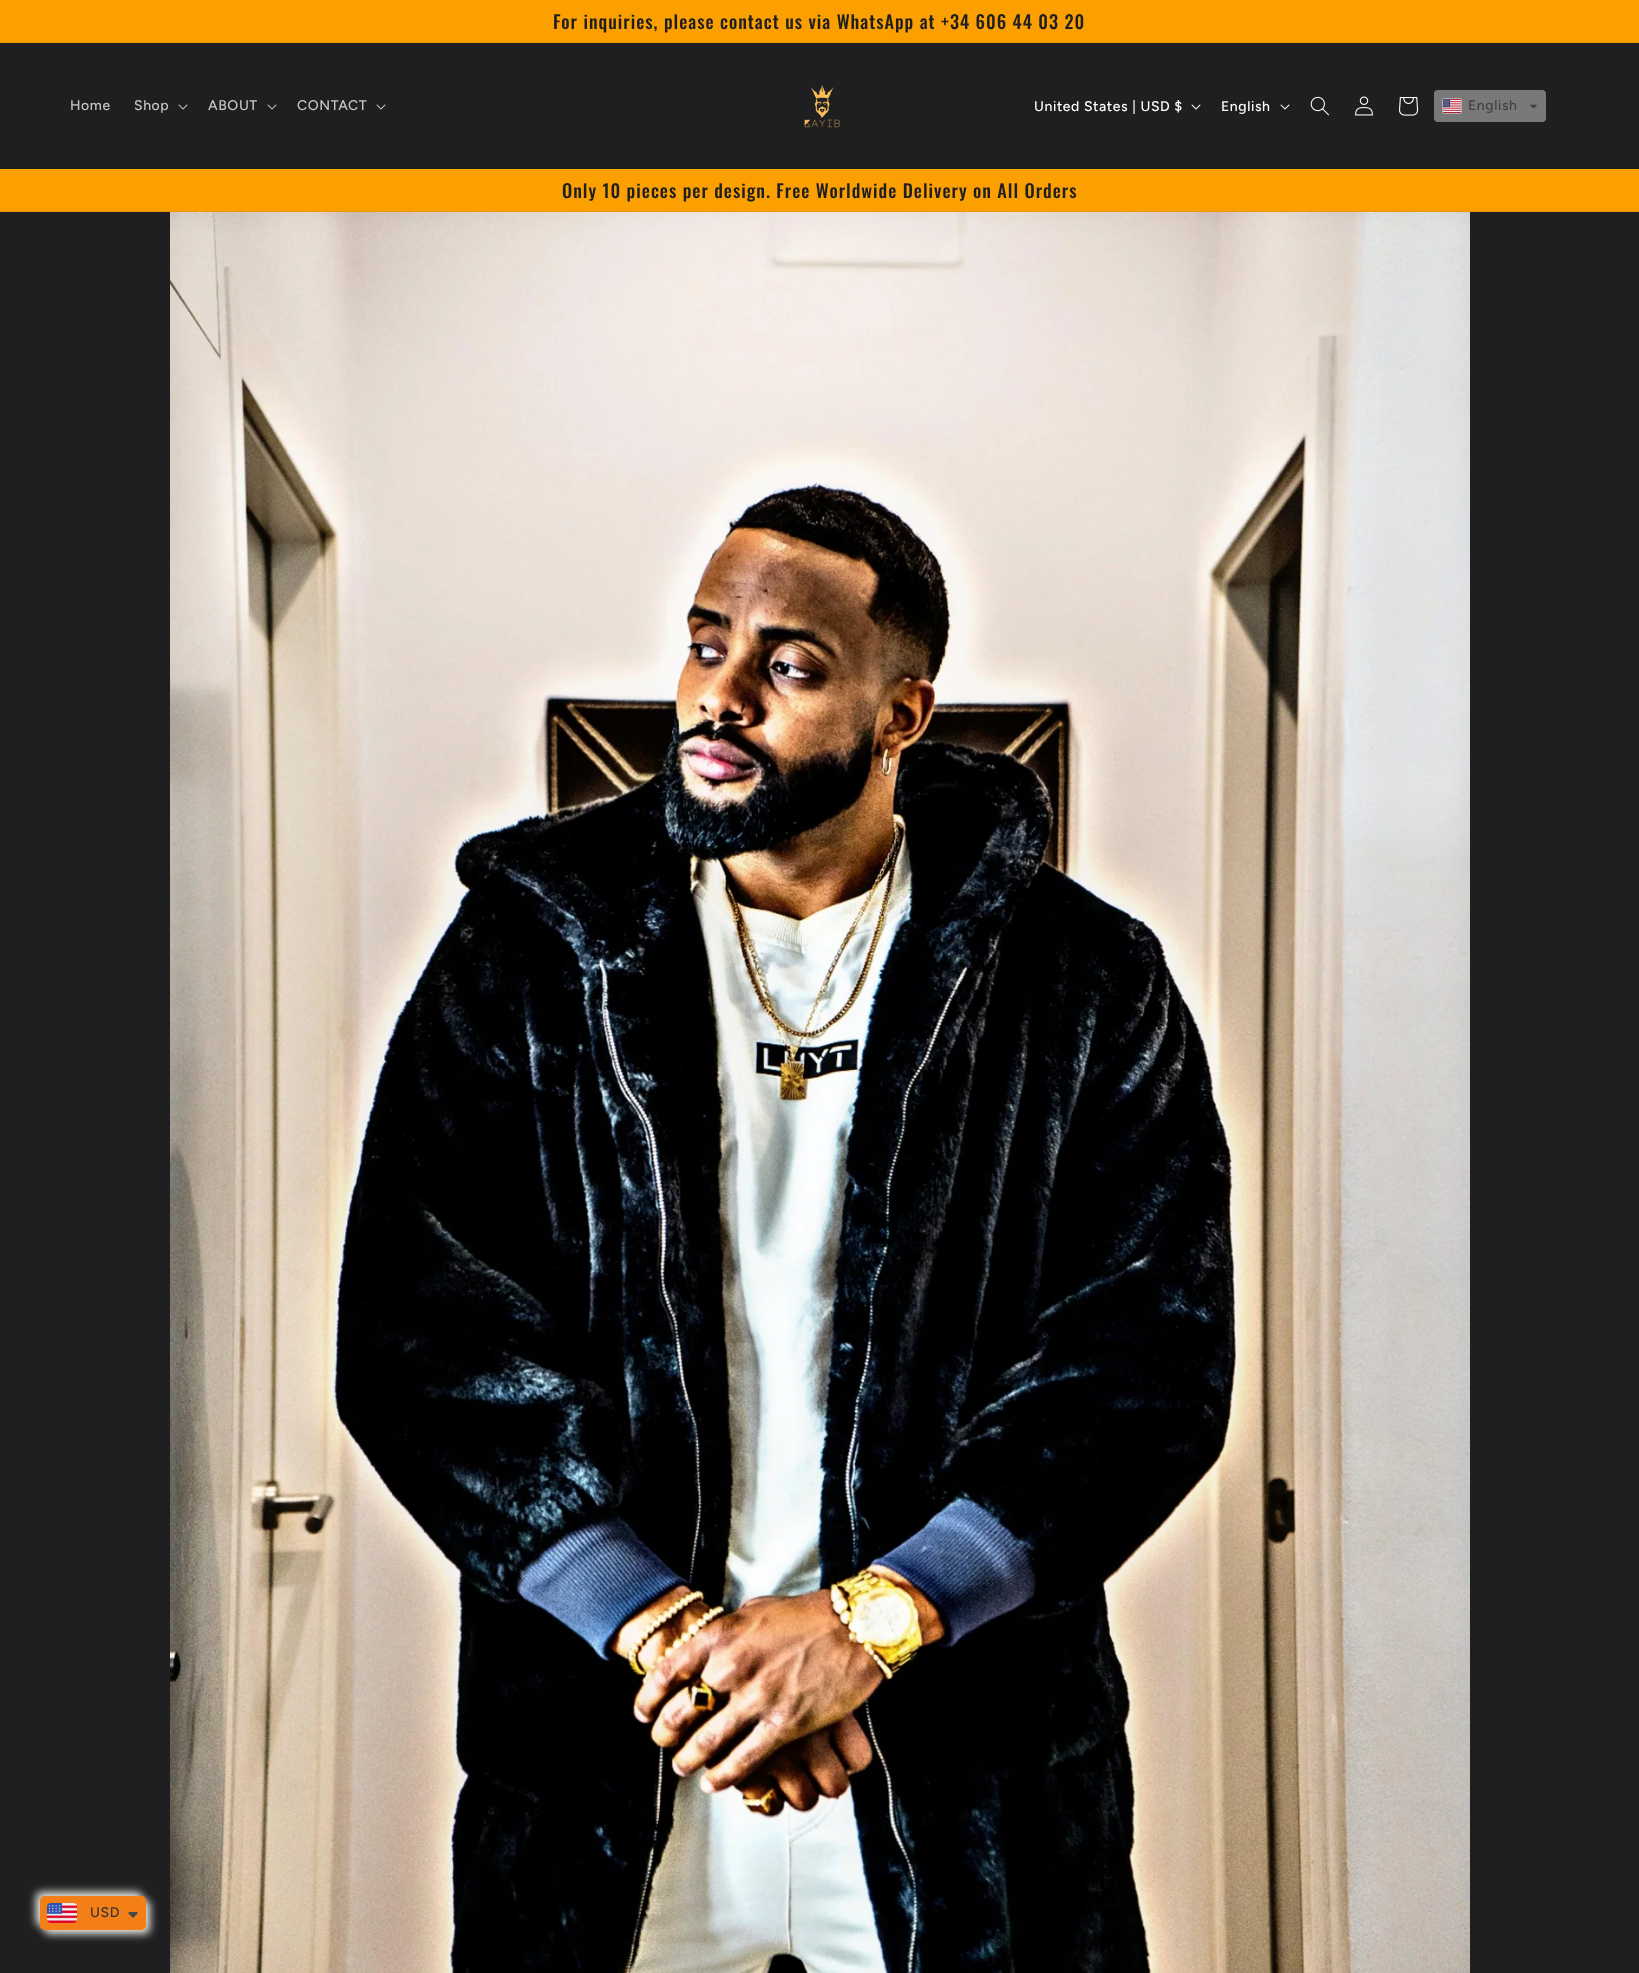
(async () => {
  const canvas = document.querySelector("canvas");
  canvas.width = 1639;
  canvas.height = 1973;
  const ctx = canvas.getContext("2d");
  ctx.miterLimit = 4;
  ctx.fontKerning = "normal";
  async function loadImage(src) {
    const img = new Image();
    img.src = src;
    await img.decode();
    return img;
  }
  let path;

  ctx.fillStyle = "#1f1f21";
  ctx.fillRect(0, 0, 1639, 1973);
  ctx.fillStyle = "#fca002";
  ctx.fillRect(0, 0, 1639, 42);
  ctx.fillStyle = "#ea9604";
  ctx.fillRect(0, 42, 1639, 1);
  ctx.drawImage(await loadImage("img/1.png"), 178, 104, 10, 6);
  ctx.drawImage(await loadImage("img/1.png"), 267, 104, 10, 6);
  ctx.drawImage(await loadImage("img/1.png"), 376, 104, 10, 6);
  ctx.drawImage(await loadImage("img/2.png"), 804, 85, 36, 43);
  ctx.drawImage(await loadImage("img/3.png"), 1191, 104, 10, 6);
  ctx.drawImage(await loadImage("img/3.png"), 1280, 104, 10, 6);
  ctx.drawImage(await loadImage("img/4.png"), 1310, 96, 19, 20);
  ctx.drawImage(await loadImage("img/5.png"), 1355, 96, 18, 20);
  ctx.drawImage(await loadImage("img/6.png"), 1399, 97, 20, 19);
  ctx.fillStyle = "#79797a";
  ctx.beginPath();
  ctx.roundRect(1434, 90, 112, 32, 4);
  ctx.fill();
  ctx.beginPath();
  ctx.roundRect(1442.5, 98.5, 19, 15, 1.5);
  ctx.strokeStyle = "#adaeb0";
  ctx.stroke();
  ctx.drawImage(await loadImage("img/7.png"), 1443, 99, 18, 14);
  ctx.drawImage(await loadImage("img/8.png"), 1530, 104, 7, 5);
  ctx.fillStyle = "#fca002";
  ctx.fillRect(0, 169, 1639, 42);
  ctx.fillStyle = "#ea9604";
  ctx.fillRect(0, 211, 1639, 1);
  ctx.fillStyle = "#e8e8e2";
  ctx.filter = "blur(4.5px)";
  ctx.beginPath();
  ctx.roundRect(36, 1892, 106, 34, 5);
  ctx.fill();
  ctx.filter = "none";
  ctx.filter = "blur(4.5px)";
  ctx.beginPath();
  ctx.roundRect(44, 1900, 106, 34, 5);
  ctx.fill();
  ctx.filter = "none";
  ctx.fillStyle = "#f57f17";
  ctx.beginPath();
  ctx.roundRect(40, 1896, 106, 34, 5);
  ctx.fill();
  ctx.drawImage(await loadImage("img/9.png"), 47, 1903, 30, 20);
  ctx.fillStyle = "#474942";
  path = new Path2D("M130 1912C129 1912 128.5 1912.5 128 1913L133 1918L138 1913L137 1912Z");
  ctx.fill(path);
  ctx.drawImage(await loadImage("img/10.png"), 170, 212, 1300, 1761);
  ctx.letterSpacing = "1px";
  ctx.font = "500 18.2px Oswald";
  ctx.fillStyle = "#1f1f21";
  ctx.fillText("For inquiries, please contact us via WhatsApp at +34 606 44 03 20", 553, 29);
  ctx.letterSpacing = "0.6px";
  ctx.font = "500 14px Figtree";
  ctx.fillStyle = "#c7c7c8";
  for (const [text, x, y] of [
    ["Home", 70, 110],
    ["Shop", 134, 110],
    ["ABOUT", 208, 110],
    ["CONTACT", 297, 110],
  ]) {
    ctx.fillText(text, x, y);
  }
  ctx.fillStyle = "#ffffff";
  ctx.fillText("United States | USD $", 1034, 111);
  ctx.fillText("English", 1221, 111);
  ctx.fillStyle = "#404040";
  ctx.fillText("English", 1468, 110);
  ctx.letterSpacing = "1px";
  ctx.font = "500 18.2px Oswald";
  ctx.fillStyle = "#1f1f21";
  ctx.fillText("Only 10 pieces per design. Free Worldwide Delivery on All Orders", 562, 198);
  ctx.letterSpacing = "0.6px";
  ctx.font = "500 14px Figtree";
  ctx.fillStyle = "#333333";
  ctx.fillText("USD", 90, 1917);
})();
